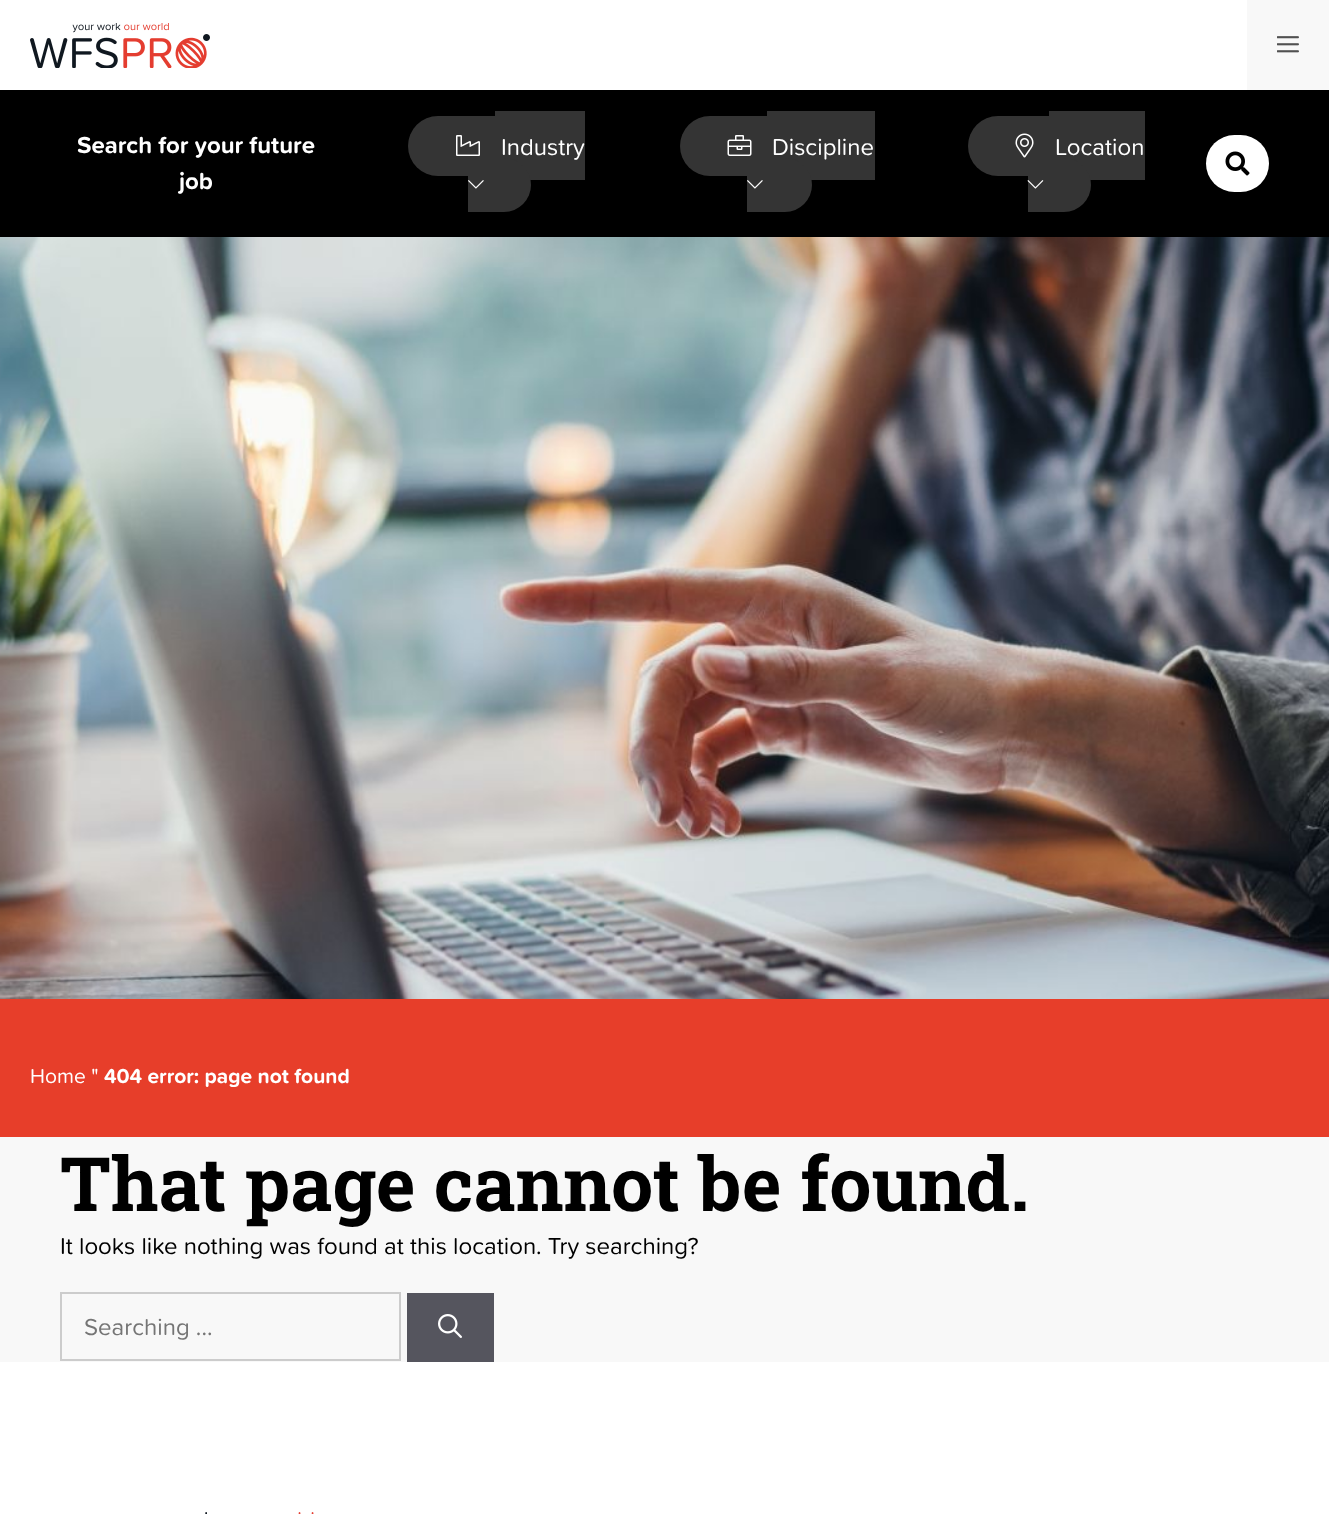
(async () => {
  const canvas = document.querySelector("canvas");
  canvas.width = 1329;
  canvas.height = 1514;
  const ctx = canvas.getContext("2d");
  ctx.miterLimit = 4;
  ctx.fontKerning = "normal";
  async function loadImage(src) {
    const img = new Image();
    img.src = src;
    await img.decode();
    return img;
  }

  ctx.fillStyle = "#f8f8f8";
  ctx.fillRect(0, 0, 1329, 1514);
  ctx.fillStyle = "#ffffff";
  ctx.fillRect(0, 0, 1247, 90);
  ctx.drawImage(await loadImage("img/1.png"), 30, 23, 180, 45);
  ctx.drawImage(await loadImage("img/2.png"), 1277, 36, 22, 17);
  ctx.fillStyle = "#000000";
  ctx.fillRect(0, 90, 1329, 147);
  ctx.fillStyle = "#343434";
  ctx.beginPath();
  ctx.roundRect(408, 116, 87, 60, [30, 0, 0, 30]);
  ctx.fill();
  ctx.fillRect(495, 111, 90, 69);
  ctx.beginPath();
  ctx.roundRect(468, 158, 63, 54, [0, 27, 27, 0]);
  ctx.fill();
  ctx.drawImage(await loadImage("img/3.png"), 456, 135, 24, 21);
  ctx.drawImage(await loadImage("img/4.png"), 468, 180, 16, 9);
  ctx.beginPath();
  ctx.roundRect(680, 116, 87, 60, [30, 0, 0, 30]);
  ctx.fill();
  ctx.fillRect(767, 111, 108, 69);
  ctx.beginPath();
  ctx.roundRect(747, 158, 65, 54, [0, 27, 27, 0]);
  ctx.fill();
  ctx.drawImage(await loadImage("img/5.png"), 727, 135, 25, 21);
  ctx.drawImage(await loadImage("img/4.png"), 747, 180, 16, 9);
  ctx.beginPath();
  ctx.roundRect(968, 116, 81, 60, [30, 0, 0, 30]);
  ctx.fill();
  ctx.fillRect(1049, 111, 96, 69);
  ctx.beginPath();
  ctx.roundRect(1028, 158, 63, 54, [0, 27, 27, 0]);
  ctx.fill();
  ctx.drawImage(await loadImage("img/6.png"), 1015, 133, 19, 25);
  ctx.drawImage(await loadImage("img/7.png"), 1027, 180, 17, 9);
  ctx.fillStyle = "#ffffff";
  ctx.beginPath();
  ctx.roundRect(1206, 135, 63, 57, 28.5);
  ctx.fill();
  ctx.drawImage(await loadImage("img/8.png"), 1225, 151, 25, 25);
  ctx.drawImage(await loadImage("img/9.png"), 0, 237, 1329, 762);
  ctx.fillStyle = "#e73e2a";
  ctx.fillRect(0, 999, 1329, 138);
  ctx.strokeStyle = "#cccccc";
  ctx.lineWidth = 2;
  ctx.strokeRect(61, 1293, 339, 67);
  ctx.fillStyle = "#55555e";
  ctx.fillRect(407, 1293, 87, 69);
  ctx.drawImage(await loadImage("img/10.png"), 438, 1314, 24, 24);
  ctx.fillStyle = "#ffffff";
  ctx.fillRect(0, 1362, 1329, 152);
  ctx.drawImage(await loadImage("img/11.png"), 205, 1512, 109, 2);
  ctx.font = "bold 24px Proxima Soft";
  ctx.fillText("Search for your future", 77, 153);
  ctx.fillText("job", 179, 189);
  ctx.font = "24px Proxima Soft";
  for (const [text, x, y] of [
    ["Industry", 501, 155],
    ["Discipline", 772, 155],
    ["Location", 1055, 155],
  ]) {
    ctx.fillText(text, x, y);
  }
  ctx.font = "21px Proxima Soft";
  ctx.fillText("Home \"", 30, 1083);
  ctx.font = "bold 21px Proxima Soft";
  ctx.fillText("404 error: page not found", 104, 1083);
  ctx.font = "bold 75px Roboto Slab";
  ctx.fillStyle = "#000000";
  ctx.fillText("That page cannot be found.", 60, 1211);
  ctx.font = "24px Proxima Soft";
  ctx.fillText("It looks like nothing was found at this location. Try searching?", 60, 1254);
  ctx.fillStyle = "#757575";
  ctx.fillText("Searching ...", 84, 1335);
})();
